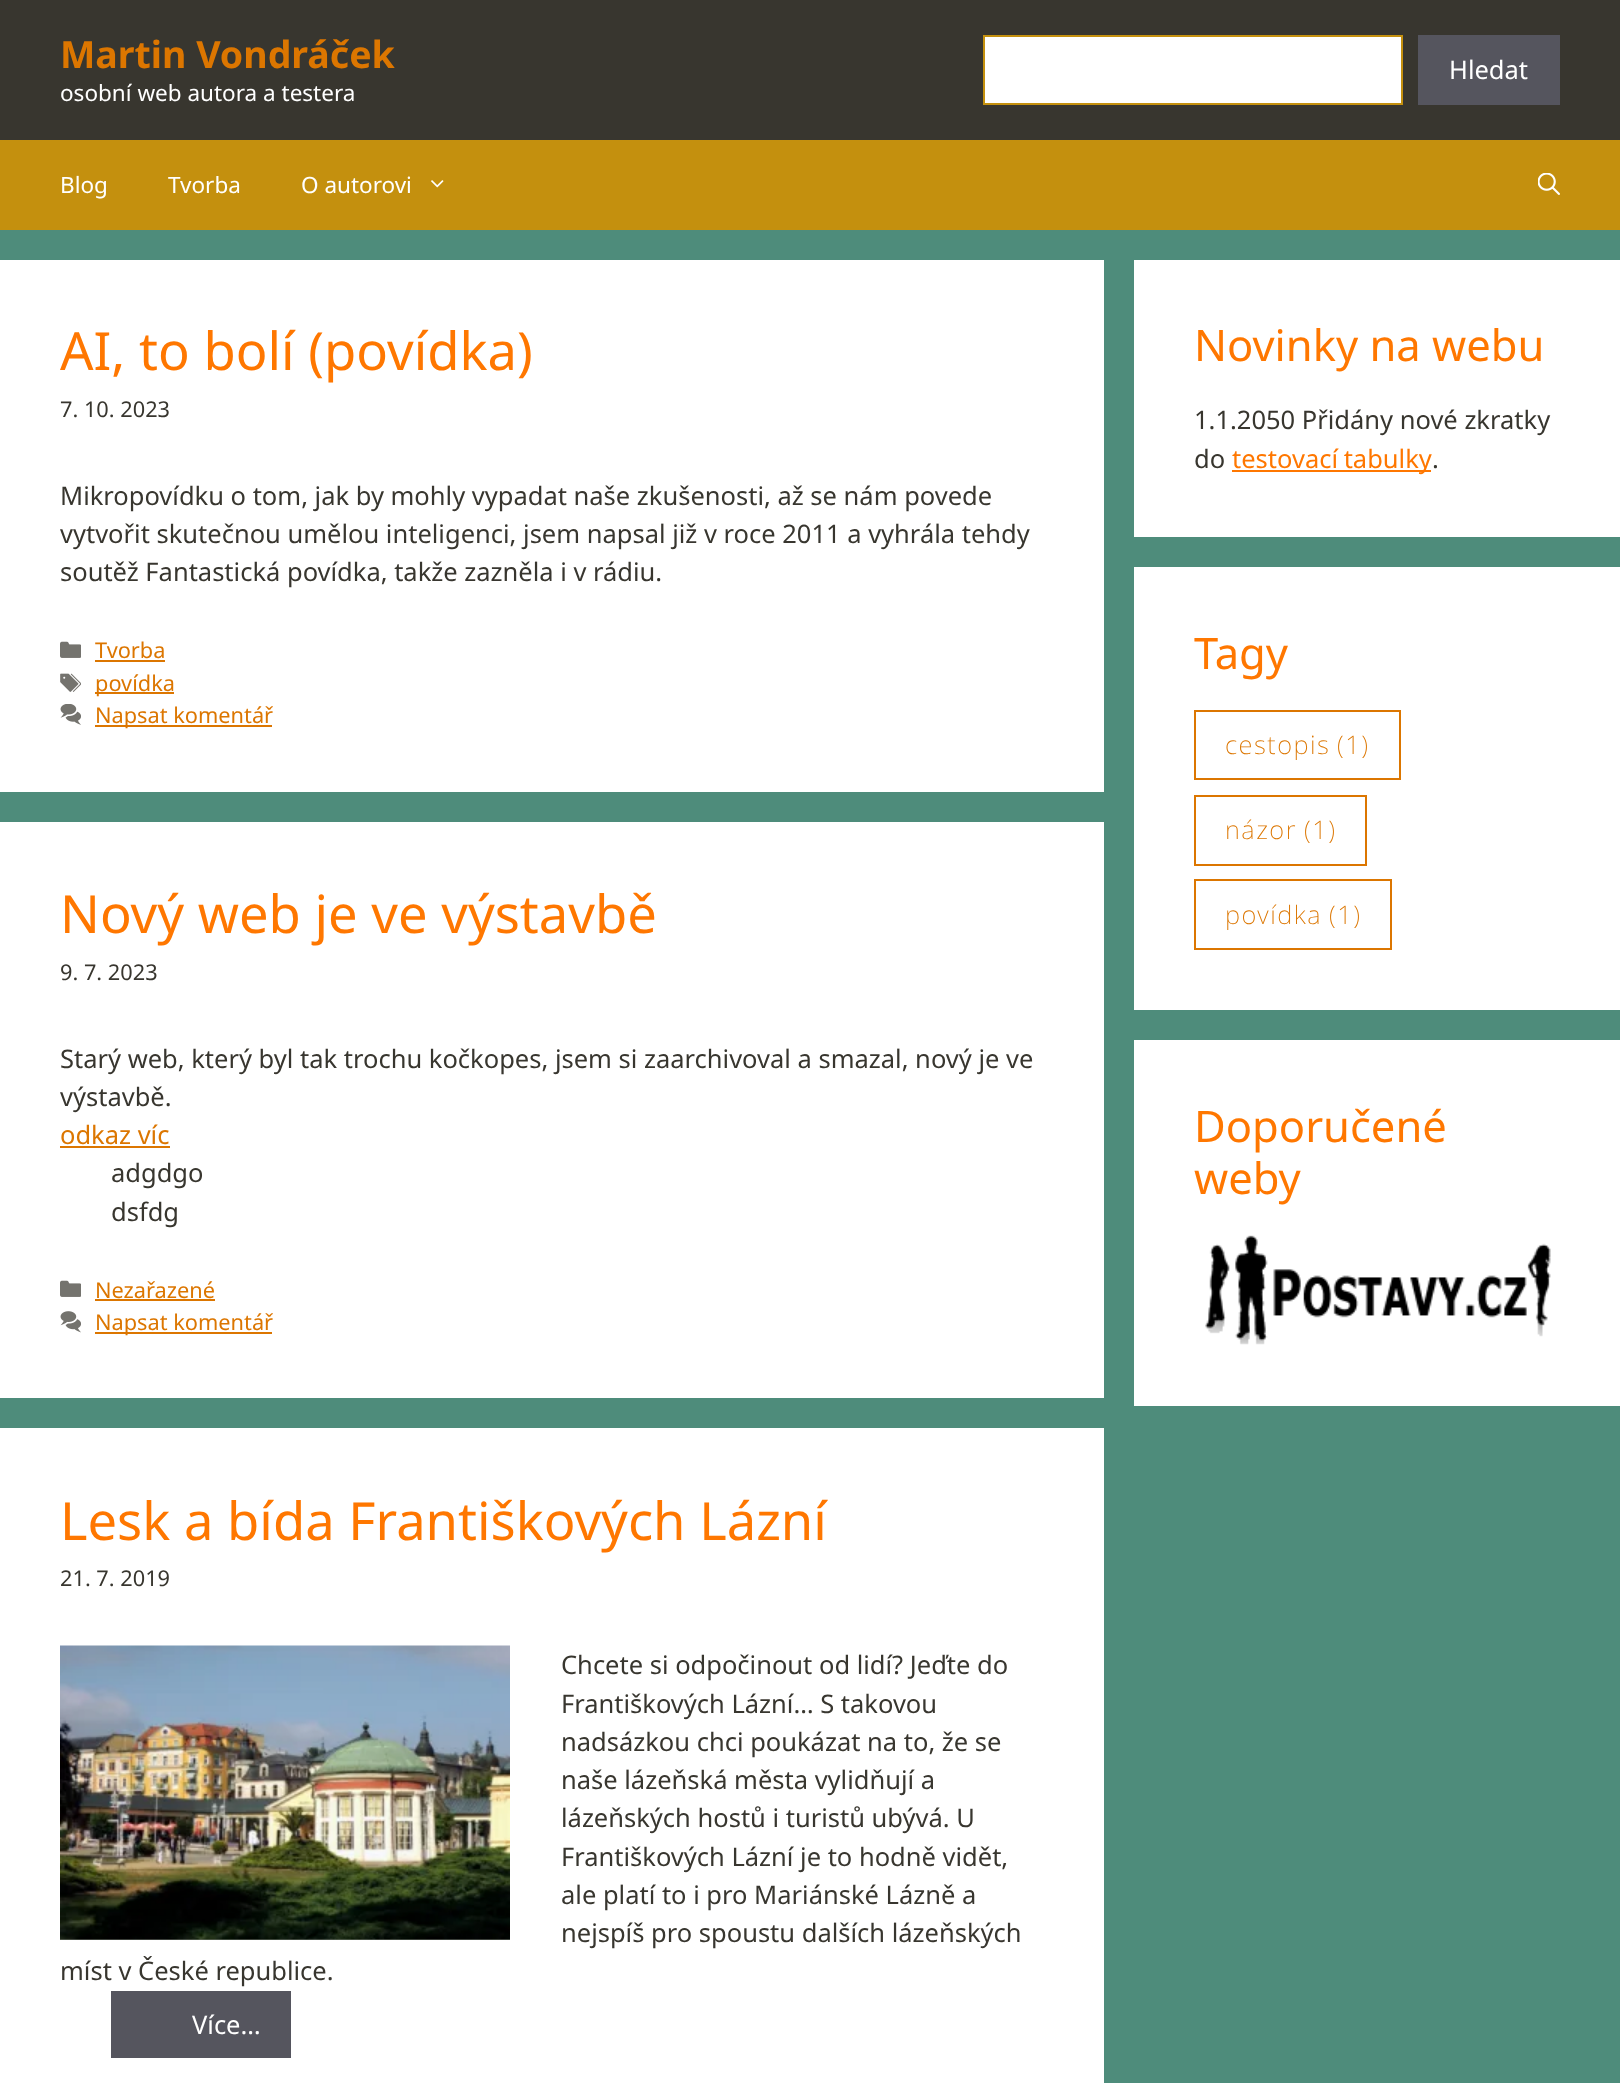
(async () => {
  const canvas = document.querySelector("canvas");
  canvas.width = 1620;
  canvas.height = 2083;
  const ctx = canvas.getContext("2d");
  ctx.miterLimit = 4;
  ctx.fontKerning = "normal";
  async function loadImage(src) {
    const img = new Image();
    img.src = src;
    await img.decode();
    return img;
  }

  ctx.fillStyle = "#4e8c7b";
  ctx.fillRect(0, 0, 1620, 2083);
  ctx.fillStyle = "#38362f";
  ctx.fillRect(0, 0, 1620, 140);
  ctx.fillStyle = "#ffffff";
  ctx.beginPath();
  ctx.rect(984, 36, 418, 68);
  ctx.fill();
  ctx.strokeStyle = "#c4900e";
  ctx.lineWidth = 2;
  ctx.stroke();
  ctx.fillStyle = "#55555e";
  ctx.fillRect(1418, 35, 142, 70);
  ctx.fillStyle = "#c4900e";
  ctx.fillRect(0, 140, 1620, 90);
  ctx.drawImage(await loadImage("img/1.png"), 431, 180, 13, 8);
  ctx.drawImage(await loadImage("img/2.png"), 1538, 173, 22, 22);
  ctx.fillStyle = "#ffffff";
  ctx.fillRect(0, 260, 1104, 532);
  ctx.drawImage(await loadImage("img/3.png"), 60, 641, 21, 17);
  ctx.fillStyle = "#dc7600";
  ctx.fillRect(95, 660, 70, 2);
  ctx.drawImage(await loadImage("img/4.png"), 60, 673, 21, 19);
  ctx.fillRect(95, 692, 79, 2);
  ctx.drawImage(await loadImage("img/5.png"), 60, 704, 21, 21);
  for (const [x, y, w, h, color] of [
    [95, 725, 177, 2, "#dc7600"],
    [0, 822, 1104, 576, "#ffffff"],
    [60, 1146, 110, 2, "#dc7600"],
  ]) {
    ctx.fillStyle = color;
    ctx.fillRect(x, y, w, h);
  }
  ctx.drawImage(await loadImage("img/3.png"), 60, 1280, 21, 17);
  ctx.fillRect(95, 1299, 120, 2);
  ctx.drawImage(await loadImage("img/6.png"), 60, 1311, 21, 22);
  for (const [x, y, w, h, color] of [
    [95, 1332, 177, 2, "#dc7600"],
    [0, 1428, 1104, 655, "#ffffff"],
    [60, 1939, 450, 1, "#757a71"],
  ]) {
    ctx.fillStyle = color;
    ctx.fillRect(x, y, w, h);
  }
  ctx.drawImage(await loadImage("img/7.png"), 60, 1645, 450, 295);
  for (const [x, y, w, h, color] of [
    [111, 1991, 180, 67, "#55555e"],
    [1134, 260, 486, 277, "#ffffff"],
    [1232, 470, 199, 2, "#ff7700"],
    [1134, 567, 486, 443, "#ffffff"],
  ]) {
    ctx.fillStyle = color;
    ctx.fillRect(x, y, w, h);
  }
  ctx.strokeStyle = "#dc7600";
  ctx.strokeRect(1195, 711, 205, 68);
  ctx.strokeRect(1195, 796, 171, 69);
  ctx.strokeRect(1195, 880, 196, 69);
  ctx.fillRect(1134, 1040, 486, 366);
  ctx.drawImage(await loadImage("img/8.png"), 1205, 1235, 346, 110);
  ctx.font = "bold 37.5px Noto Sans";
  ctx.fillStyle = "#dc7600";
  ctx.fillText("Martin Vondráček", 60, 68);
  ctx.font = "22.5px Noto Sans";
  ctx.fillStyle = "#ffffff";
  ctx.fillText("osobní web autora a testera", 60, 101);
  ctx.font = "25.5px Noto Sans";
  ctx.fillText("Hledat", 1449, 79);
  ctx.font = "22.5px Noto Sans";
  for (const [text, x, y] of [
    ["Blog", 60, 193],
    ["Tvorba", 168, 193],
    ["O autorovi", 301, 193],
  ]) {
    ctx.fillText(text, x, y);
  }
  ctx.font = "52.5px Noto Sans";
  ctx.fillStyle = "#ff7700";
  ctx.fillText("AI, to bolí (povídka)", 60, 370);
  ctx.font = "21.75px Noto Sans";
  ctx.fillStyle = "#38362f";
  ctx.fillText("7. 10. 2023", 60, 417);
  ctx.font = "25.5px Noto Sans";
  for (const [text, x, y] of [
    ["Mikropovídku o tom, jak by mohly vypadat naše zkušenosti, až se nám povede", 60, 505],
    ["vytvořit skutečnou umělou inteligenci, jsem napsal již v roce 2011 a vyhrála tehdy", 60, 543],
    ["soutěž Fantastická povídka, takže zazněla i v rádiu.", 60, 581],
  ]) {
    ctx.fillText(text, x, y);
  }
  ctx.font = "21.75px Noto Sans";
  ctx.fillStyle = "#dc7600";
  for (const [text, x, y] of [
    ["Tvorba", 95, 658],
    ["povídka", 95, 691],
    ["Napsat komentář", 95, 723],
  ]) {
    ctx.fillText(text, x, y);
  }
  ctx.font = "52.5px Noto Sans";
  ctx.fillStyle = "#ff7700";
  ctx.fillText("Nový web je ve výstavbě", 60, 933);
  ctx.font = "21.75px Noto Sans";
  ctx.fillStyle = "#38362f";
  ctx.fillText("9. 7. 2023", 60, 980);
  ctx.font = "25.5px Noto Sans";
  ctx.fillText("Starý web, který byl tak trochu kočkopes, jsem si zaarchivoval a smazal, nový je ve", 60, 1068);
  ctx.fillText("výstavbě.", 60, 1106);
  ctx.fillStyle = "#dc7600";
  ctx.fillText("odkaz víc", 60, 1144);
  ctx.fillStyle = "#38362f";
  ctx.fillText("adgdgo", 111, 1182);
  ctx.fillText("dsfdg", 111, 1221);
  ctx.font = "21.75px Noto Sans";
  ctx.fillStyle = "#dc7600";
  ctx.fillText("Nezařazené", 95, 1298);
  ctx.fillText("Napsat komentář", 95, 1330);
  ctx.font = "52.5px Noto Sans";
  ctx.fillStyle = "#ff7700";
  ctx.fillText("Lesk a bída Františkových Lázní", 60, 1540);
  ctx.font = "21.75px Noto Sans";
  ctx.fillStyle = "#38362f";
  ctx.fillText("21. 7. 2019", 60, 1586);
  ctx.font = "25.5px Noto Sans";
  for (const [text, x, y] of [
    ["Chcete si odpočinout od lidí? Jeďte do", 561, 1674],
    ["Františkových Lázní… S takovou", 561, 1713],
    ["nadsázkou chci poukázat na to, že se", 561, 1751],
    ["naše lázeňská města vylidňují a", 561, 1789],
    ["lázeňských hostů i turistů ubývá. U", 561, 1827],
    ["Františkových Lázní je to hodně vidět,", 561, 1866],
    ["ale platí to i pro Mariánské Lázně a", 561, 1904],
    ["nejspíš pro spoustu dalších lázeňských", 561, 1942],
    ["míst v České republice.", 60, 1980],
  ]) {
    ctx.fillText(text, x, y);
  }
  ctx.fillStyle = "#ffffff";
  ctx.fillText("Více…", 192, 2034);
  ctx.font = "43.5px Noto Sans";
  ctx.fillStyle = "#ff7700";
  ctx.fillText("Novinky na webu", 1194, 361);
  ctx.font = "25.5px Noto Sans";
  ctx.fillStyle = "#38362f";
  ctx.fillText("1.1.2050 Přidány nové zkratky", 1194, 429);
  ctx.fillText("do", 1194, 468);
  ctx.wordSpacing = "-1px";
  ctx.fillStyle = "#ff7700";
  ctx.fillText("testovací tabulky", 1232, 468);
  ctx.wordSpacing = "0px";
  ctx.fillStyle = "#38362f";
  ctx.fillText(".", 1432, 468);
  ctx.font = "43.5px Noto Sans";
  ctx.fillStyle = "#ff7700";
  ctx.fillText("Tagy", 1194, 669);
  ctx.letterSpacing = "1.5px";
  ctx.font = "200 25.5px Noto Sans";
  ctx.fillStyle = "#dc7600";
  for (const [text, x, y] of [
    ["cestopis", 1225, 754],
    ["(1)", 1337, 754],
    ["názor", 1225, 839],
    ["(1)", 1304, 839],
    ["povídka", 1225, 924],
    ["(1)", 1329, 924],
  ]) {
    ctx.fillText(text, x, y);
  }
  ctx.letterSpacing = "0px";
  ctx.font = "43.5px Noto Sans";
  ctx.fillStyle = "#ff7700";
  ctx.fillText("Doporučené", 1194, 1142);
  ctx.fillText("weby", 1194, 1194);
})();
